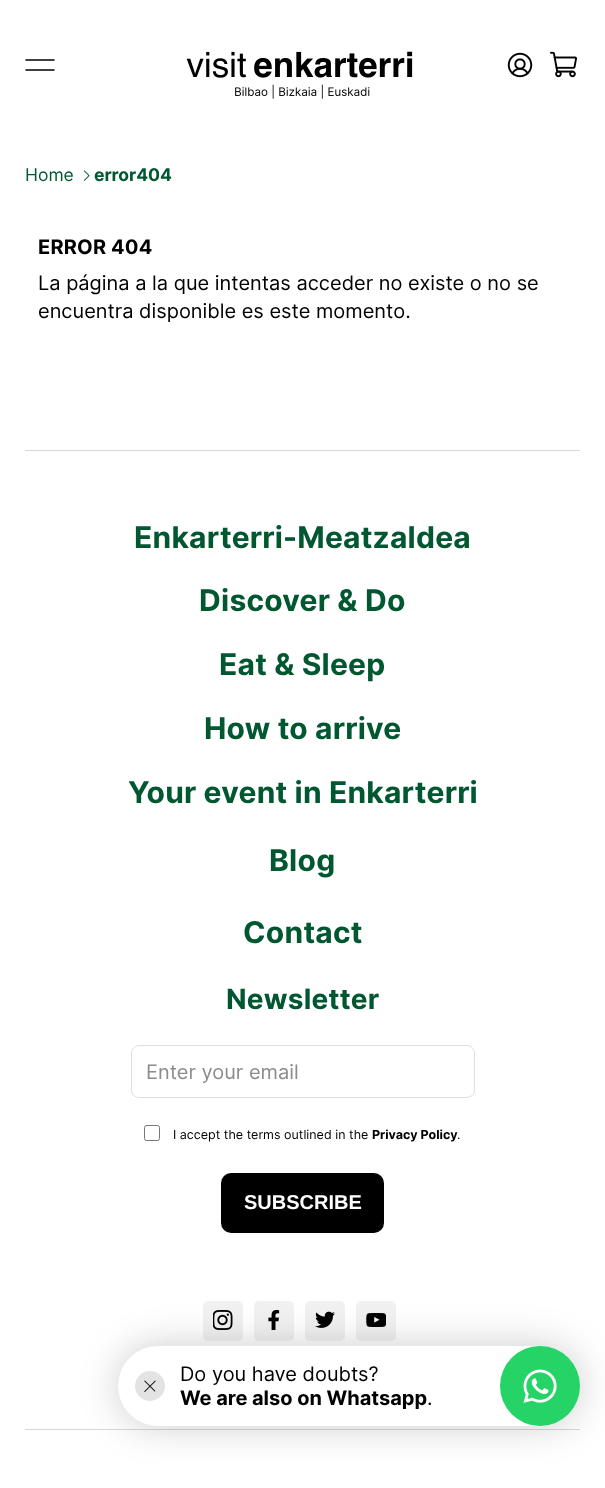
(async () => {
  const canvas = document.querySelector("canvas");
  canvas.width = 605;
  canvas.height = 1488;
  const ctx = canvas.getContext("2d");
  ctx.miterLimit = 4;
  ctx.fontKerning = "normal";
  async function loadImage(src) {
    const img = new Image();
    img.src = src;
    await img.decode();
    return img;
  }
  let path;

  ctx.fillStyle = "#ffffff";
  ctx.fillRect(0, 0, 605, 1488);
  path = new Path2D("M26 60H54M26 70H54");
  ctx.strokeStyle = "#000000";
  ctx.lineWidth = 1.5;
  ctx.lineCap = "round";
  ctx.lineJoin = "round";
  ctx.stroke(path);
  ctx.drawImage(await loadImage("img/1.png"), 186, 51, 227, 48);
  ctx.drawImage(await loadImage("img/2.png"), 507, 52, 26, 26);
  ctx.drawImage(await loadImage("img/3.png"), 550, 51, 27, 27);
  ctx.drawImage(await loadImage("img/4.png"), 83, 170, 7, 11);
  ctx.fillStyle = "#d9d9d9";
  ctx.fillRect(25, 450, 555, 1);
  ctx.beginPath();
  ctx.roundRect(131.5, 1045.5, 343, 52, 7.5);
  ctx.strokeStyle = "#dfdfdf";
  ctx.lineWidth = 1;
  ctx.lineJoin = "miter";
  ctx.stroke();
  ctx.beginPath();
  ctx.roundRect(144.5, 1125.5, 15, 15, 2);
  ctx.strokeStyle = "#767676";
  ctx.stroke();
  ctx.fillStyle = "#000000";
  ctx.beginPath();
  ctx.roundRect(221, 1173, 163, 60, 10);
  ctx.fill();
  ctx.fillStyle = "#f1f1f1";
  ctx.beginPath();
  ctx.roundRect(203, 1301, 40, 40, 5);
  ctx.fill();
  ctx.drawImage(await loadImage("img/5.png"), 213, 1310, 20, 20);
  ctx.beginPath();
  ctx.roundRect(254, 1301, 40, 40, 5);
  ctx.fill();
  ctx.drawImage(await loadImage("img/6.png"), 268, 1310, 12, 20);
  ctx.beginPath();
  ctx.roundRect(305, 1301, 40, 40, 5);
  ctx.fill();
  ctx.drawImage(await loadImage("img/7.png"), 315, 1311, 20, 17);
  ctx.beginPath();
  ctx.roundRect(356, 1301, 40, 40, 5);
  ctx.fill();
  ctx.drawImage(await loadImage("img/8.png"), 366, 1312, 20, 15);
  ctx.fillStyle = "#d9d9d9";
  ctx.fillRect(25, 1429, 555, 1);
  ctx.fillStyle = "rgba(0, 0, 0, 0.2)";
  ctx.filter = "blur(19px)";
  ctx.beginPath();
  ctx.roundRect(118, 1346, 462, 80, 40);
  ctx.fill();
  ctx.filter = "none";
  ctx.fillStyle = "#ffffff";
  ctx.beginPath();
  ctx.roundRect(118, 1346, 422, 80, [40, 0, 0, 40]);
  ctx.fill();
  ctx.fillStyle = "#e3e3e3";
  ctx.beginPath();
  ctx.arc(150, 1386, 15, 0, Math.PI * 2);
  ctx.fill();
  ctx.drawImage(await loadImage("img/9.png"), 144, 1380, 12, 12);
  ctx.fillStyle = "#25d366";
  ctx.beginPath();
  ctx.arc(540, 1386, 40, 0, Math.PI * 2);
  ctx.fill();
  ctx.drawImage(await loadImage("img/10.png"), 523, 1369, 34, 34);
  ctx.font = "17.5px Inter";
  ctx.fillStyle = "#005730";
  ctx.fillText("Home", 25, 181);
  ctx.font = "bold 17.5px Inter";
  ctx.fillText("error404", 94, 181);
  ctx.letterSpacing = "0.2px";
  ctx.font = "bold 20px Inter";
  ctx.fillStyle = "#000000";
  ctx.fillText("ERROR 404", 38, 254);
  ctx.letterSpacing = "0px";
  ctx.font = "20px Inter";
  ctx.fillText("La página a la que intentas acceder no existe o no se", 38, 290);
  ctx.fillText("encuentra disponible es este momento.", 38, 318);
  ctx.letterSpacing = "0.2px";
  ctx.font = "bold 30px Inter";
  ctx.fillStyle = "#005730";
  for (const [text, x, y] of [
    ["Enkarterri-Meatzaldea", 134, 548],
    ["Discover & Do", 199, 611],
    ["Eat & Sleep", 219, 675],
    ["How to arrive", 204, 739],
    ["Your event in Enkarterri", 128, 803],
  ]) {
    ctx.fillText(text, x, y);
  }
  ctx.letterSpacing = "0.25px";
  ctx.fillText("Blog", 269, 871);
  ctx.fillText("Contact", 243, 943);
  ctx.font = "bold 28px Inter";
  ctx.fillText("Newsletter", 226, 1009);
  ctx.letterSpacing = "0px";
  ctx.font = "20px Inter";
  ctx.fillStyle = "#8c8c8c";
  ctx.fillText("Enter your email", 146, 1079);
  ctx.font = "12.5px Inter";
  ctx.fillStyle = "#000000";
  ctx.fillText("I accept the terms outlined in the", 173, 1139);
  ctx.font = "bold 12.5px Inter";
  ctx.fillText("Privacy Policy", 372, 1139);
  ctx.font = "12.5px Inter";
  ctx.fillText(".", 457, 1139);
  ctx.font = "bold 20px Liberation Sans";
  ctx.fillStyle = "#ffffff";
  ctx.fillText("SUBSCRIBE", 244, 1209);
  ctx.font = "20px Inter";
  ctx.fillStyle = "#000000";
  ctx.fillText("Do you have doubts?", 180, 1381);
  ctx.font = "bold 20px Inter";
  ctx.fillText("We are also on Whatsapp", 180, 1405);
  ctx.font = "20px Inter";
  ctx.fillText(".", 427, 1405);
})();
